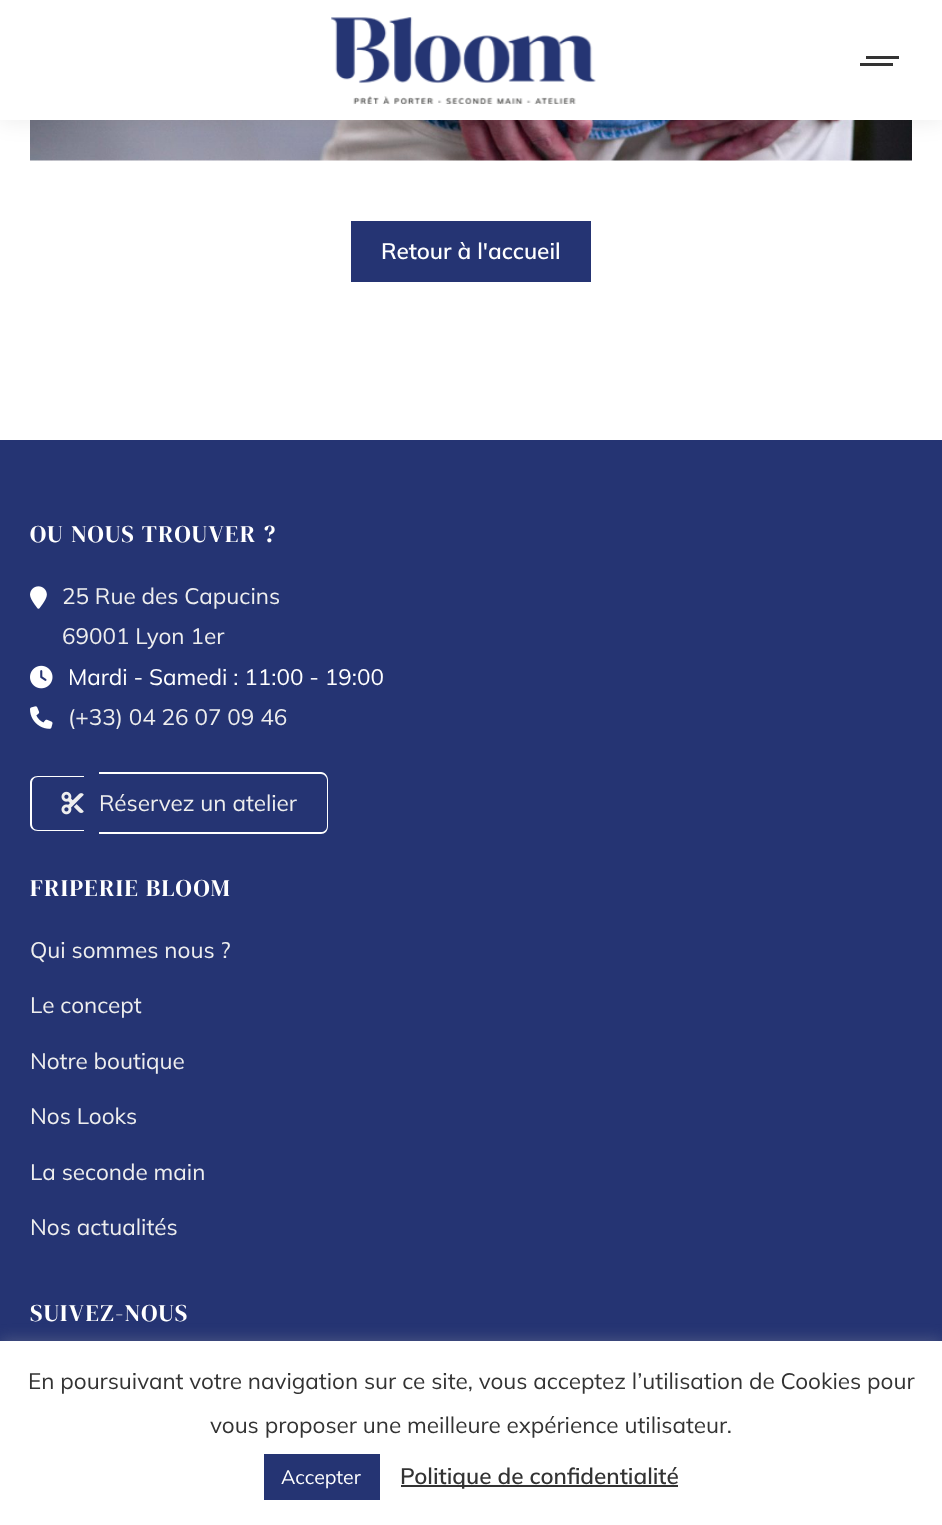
(async () => {
  const canvas = document.querySelector("canvas");
  canvas.width = 942;
  canvas.height = 1525;
  const ctx = canvas.getContext("2d");
  ctx.miterLimit = 4;
  ctx.fontKerning = "normal";
  async function loadImage(src) {
    const img = new Image();
    img.src = src;
    await img.decode();
    return img;
  }
  let path;

  ctx.fillStyle = "#ffffff";
  ctx.fillRect(0, 0, 942, 1525);
  ctx.drawImage(await loadImage("img/2.png"), 30, 120, 882, 41);
  ctx.fillStyle = "rgba(0, 0, 0, 0.07)";
  ctx.filter = "blur(11px)";
  ctx.beginPath();
  ctx.rect(-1, -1, 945, 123);
  ctx.fill();
  ctx.filter = "none";
  ctx.fillStyle = "#ffffff";
  ctx.fillRect(0, 0, 942, 120);
  ctx.drawImage(await loadImage("img/1.png"), 331, 17, 265, 87);
  for (const [x, y, w, h, color] of [
    [866, 56, 33, 3, "#333333"],
    [860, 63, 33, 3, "#333333"],
    [351, 221, 240, 61, "#253473"],
    [0, 440, 942, 901, "#253473"],
  ]) {
    ctx.fillStyle = color;
    ctx.fillRect(x, y, w, h);
  }
  ctx.drawImage(await loadImage("img/3.png"), 30, 586, 17, 23);
  ctx.drawImage(await loadImage("img/4.png"), 30, 665, 23, 24);
  ctx.drawImage(await loadImage("img/5.png"), 30, 706, 23, 23);
  ctx.fillStyle = "#ffffff";
  path = new Path2D("M38 776H84V831H38C33 831 30 828 30 824V783C30 779 33 776 38 776ZM38 777H84V830H38C34 830 32 827 32 824V783C32 780 34 777 38 777Z");
  ctx.fill(path, "evenodd");
  path = new Path2D("M99 772H321C325 772 328 776 328 780V826C328 831 325 834 321 834H99ZM99 774H321C324 774 327 777 327 780V826C327 830 324 832 321 832H99Z");
  ctx.fill(path, "evenodd");
  ctx.drawImage(await loadImage("img/6.png"), 61, 791, 23, 24);
  ctx.fillStyle = "rgba(172, 171, 171, 0.3)";
  ctx.filter = "blur(7.5px)";
  ctx.beginPath();
  ctx.rect(0, 1340, 942, 184);
  ctx.fill();
  ctx.filter = "none";
  for (const [x, y, w, h, color] of [
    [0, 1341, 942, 184, "#ffffff"],
    [264, 1454, 116, 46, "#253473"],
    [401, 1485, 277, 2, "#333333"],
  ]) {
    ctx.fillStyle = color;
    ctx.fillRect(x, y, w, h);
  }
  ctx.font = "600 22.5px Mulish";
  ctx.fillStyle = "#ffffff";
  ctx.fillText("Retour à l'accueil", 381, 259);
  ctx.letterSpacing = "1.5px";
  ctx.font = "24px DM Serif Display";
  ctx.fillText("OU NOUS TROUVER ?", 30, 542);
  ctx.letterSpacing = "0px";
  ctx.font = "22.5px Mulish";
  ctx.fillStyle = "#eeeeee";
  ctx.fillText("25 Rue des Capucins", 62, 604);
  ctx.fillText("69001 Lyon 1er", 62, 644);
  ctx.fillStyle = "#ffffff";
  ctx.fillText("Mardi - Samedi : 11:00 - 19:00", 68, 685);
  ctx.fillStyle = "#eeeeee";
  ctx.fillText("(+33) 04 26 07 09 46", 68, 725);
  ctx.fillText("Réservez un atelier", 99, 811);
  ctx.letterSpacing = "1.5px";
  ctx.font = "24px DM Serif Display";
  ctx.fillStyle = "#ffffff";
  ctx.fillText("FRIPERIE BLOOM", 30, 896);
  ctx.letterSpacing = "0px";
  ctx.font = "22.5px Mulish";
  ctx.fillStyle = "#eeeeee";
  for (const [text, x, y] of [
    ["Qui sommes nous ?", 30, 958],
    ["Le concept", 30, 1013],
    ["Notre boutique", 30, 1069],
    ["Nos Looks", 30, 1124],
    ["La seconde main", 30, 1180],
    ["Nos actualités", 30, 1235],
  ]) {
    ctx.fillText(text, x, y);
  }
  ctx.letterSpacing = "1.5px";
  ctx.font = "24px DM Serif Display";
  ctx.fillStyle = "#ffffff";
  ctx.fillText("SUIVEZ-NOUS", 30, 1321);
  ctx.letterSpacing = "0px";
  ctx.font = "22.5px Mulish";
  ctx.fillStyle = "#333333";
  ctx.fillText("En poursuivant votre navigation sur ce site, vous acceptez l’utilisation de Cookies pour", 28, 1389);
  ctx.fillText("vous proposer une meilleure expérience utilisateur.", 210, 1433);
  ctx.font = "19.5px Mulish";
  ctx.fillStyle = "#ffffff";
  ctx.fillText("Accepter", 281, 1484);
  ctx.font = "600 22.5px Mulish";
  ctx.fillStyle = "#333333";
  ctx.fillText("Politique de confidentialité", 400, 1484);
})();
